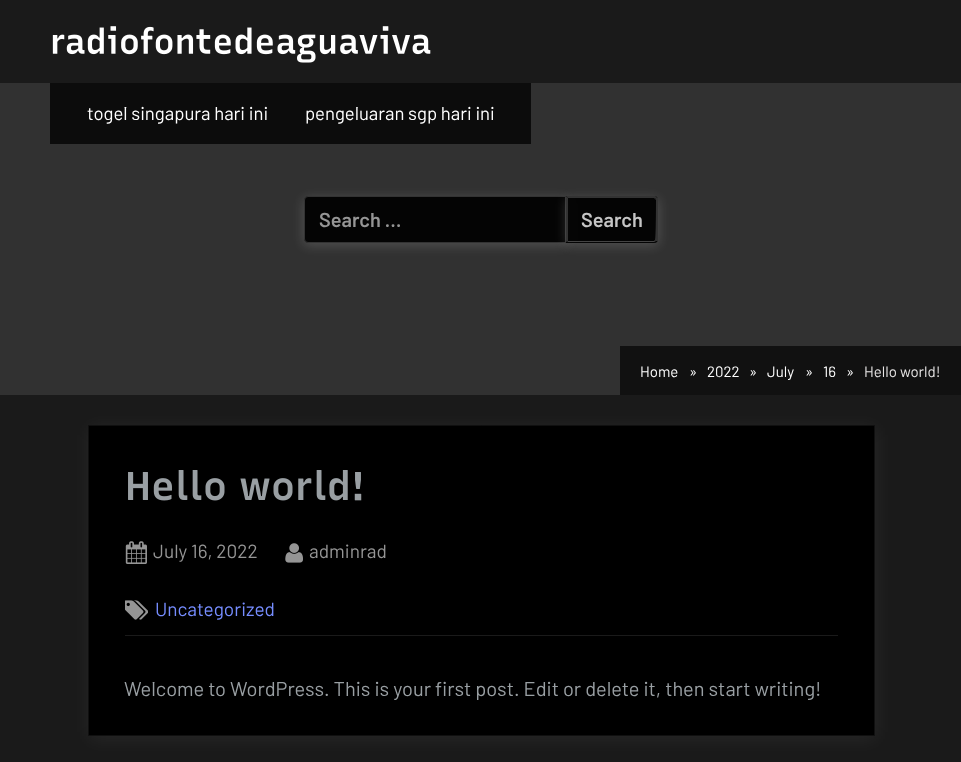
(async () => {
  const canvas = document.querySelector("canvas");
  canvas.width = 961;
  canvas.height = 762;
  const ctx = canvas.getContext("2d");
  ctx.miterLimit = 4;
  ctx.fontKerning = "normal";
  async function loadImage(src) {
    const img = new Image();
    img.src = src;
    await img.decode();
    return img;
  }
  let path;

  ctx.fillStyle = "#1a1a1a";
  ctx.fillRect(0, 0, 961, 762);
  ctx.drawImage(await loadImage("img/1.png"), 52, 26, 379, 37);
  ctx.fillStyle = "#313131";
  ctx.fillRect(0, 83, 961, 312);
  ctx.fillStyle = "#0c0c0c";
  ctx.fillRect(50, 83, 481, 61);
  ctx.save();
  path = new Path2D("M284 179H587V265H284ZM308 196H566V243H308C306 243 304 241 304 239V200C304 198 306 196 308 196Z");
  ctx.clip(path, "evenodd");
  ctx.fillStyle = "rgba(255, 255, 255, 0.15)";
  ctx.filter = "blur(6px)";
  ctx.beginPath();
  ctx.roundRect(303, 198, 265, 48, 5);
  ctx.fill();
  ctx.filter = "none";
  ctx.restore();
  ctx.fillStyle = "rgba(0, 0, 0, 0.9)";
  ctx.beginPath();
  ctx.roundRect(304.5, 196.5, 261, 46, [3.5, 0, 0, 3.5]);
  ctx.fill();
  ctx.strokeStyle = "#333333";
  ctx.stroke();
  ctx.save();
  path = new Path2D("M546 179H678V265H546ZM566 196H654C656 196 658 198 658 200V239C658 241 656 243 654 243H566Z");
  ctx.clip(path, "evenodd");
  ctx.fillStyle = "rgba(255, 255, 255, 0.15)";
  ctx.filter = "blur(6px)";
  ctx.beginPath();
  ctx.roundRect(565, 198, 94, 48, 5);
  ctx.fill();
  ctx.filter = "none";
  ctx.restore();
  ctx.beginPath();
  ctx.roundRect(566, 196, 92, 47, [0, 4, 4, 0]);
  ctx.fill();
  ctx.fillStyle = "#333333";
  path = new Path2D("M568 198L566 196H655L657 197L655 199L654 198Z");
  ctx.fill(path);
  path = new Path2D("M658 241H656L655 240C656 239 656 203 656 200L655 199L657 197L658 198Z");
  ctx.fill(path);
  ctx.fillStyle = "#444444";
  path = new Path2D("M656 241L654 242H567L568 241H654L655 240Z");
  ctx.fill(path);
  ctx.fillStyle = "#333333";
  path = new Path2D("M568 198V241L566 242V196Z");
  ctx.fill(path);
  ctx.fillStyle = "#111111";
  ctx.fillRect(620, 346, 341, 49);
  ctx.fillStyle = "rgba(255, 255, 255, 0.06)";
  ctx.filter = "blur(10px)";
  ctx.beginPath();
  ctx.rect(89, 428, 787, 311);
  ctx.fill();
  ctx.filter = "none";
  ctx.fillStyle = "#000000";
  ctx.beginPath();
  ctx.rect(88.5, 425.5, 786, 310);
  ctx.fill();
  ctx.strokeStyle = "#101010";
  ctx.stroke();
  ctx.drawImage(await loadImage("img/2.png"), 128, 470, 234, 31);
  ctx.drawImage(await loadImage("img/3.png"), 125, 541, 22, 23);
  ctx.drawImage(await loadImage("img/4.png"), 285, 543, 18, 20);
  ctx.drawImage(await loadImage("img/5.png"), 125, 600, 23, 20);
  ctx.fillStyle = "#1a1a1a";
  ctx.fillRect(125, 635, 713, 1);
  ctx.font = "18.5px Barlow";
  ctx.fillStyle = "#ffffff";
  ctx.fillText("togel singapura hari ini", 87, 120);
  ctx.fillText("pengeluaran sgp hari ini", 305, 120);
  ctx.font = "600 20px Barlow";
  ctx.fillStyle = "#959595";
  ctx.fillText("Search …", 319, 227);
  ctx.fillStyle = "#c5c5c5";
  ctx.fillText("Search", 581, 227);
  ctx.font = "15px Barlow";
  ctx.fillStyle = "#ffffff";
  for (const [text, x, y] of [
    ["Home", 640, 377],
    ["»", 689, 377],
    ["2022", 707, 377],
    ["»", 749, 377],
    ["July", 767, 377],
    ["»", 805, 377],
    ["16", 823, 377],
    ["»", 846, 377],
  ]) {
    ctx.fillText(text, x, y);
  }
  ctx.fillStyle = "#e7e5e5";
  ctx.fillText("Hello world!", 864, 377);
  ctx.font = "19px Barlow";
  ctx.fillStyle = "#959595";
  ctx.fillText("July 16, 2022", 153, 558);
  ctx.fillText("adminrad", 309, 558);
  ctx.fillStyle = "#768dff";
  ctx.fillText("Uncategorized", 155, 616);
  ctx.font = "20px Barlow";
  ctx.fillStyle = "#999fa3";
  ctx.fillText("Welcome to WordPress. This is your first post. Edit or delete it, then start writing!", 124, 696);
})();
